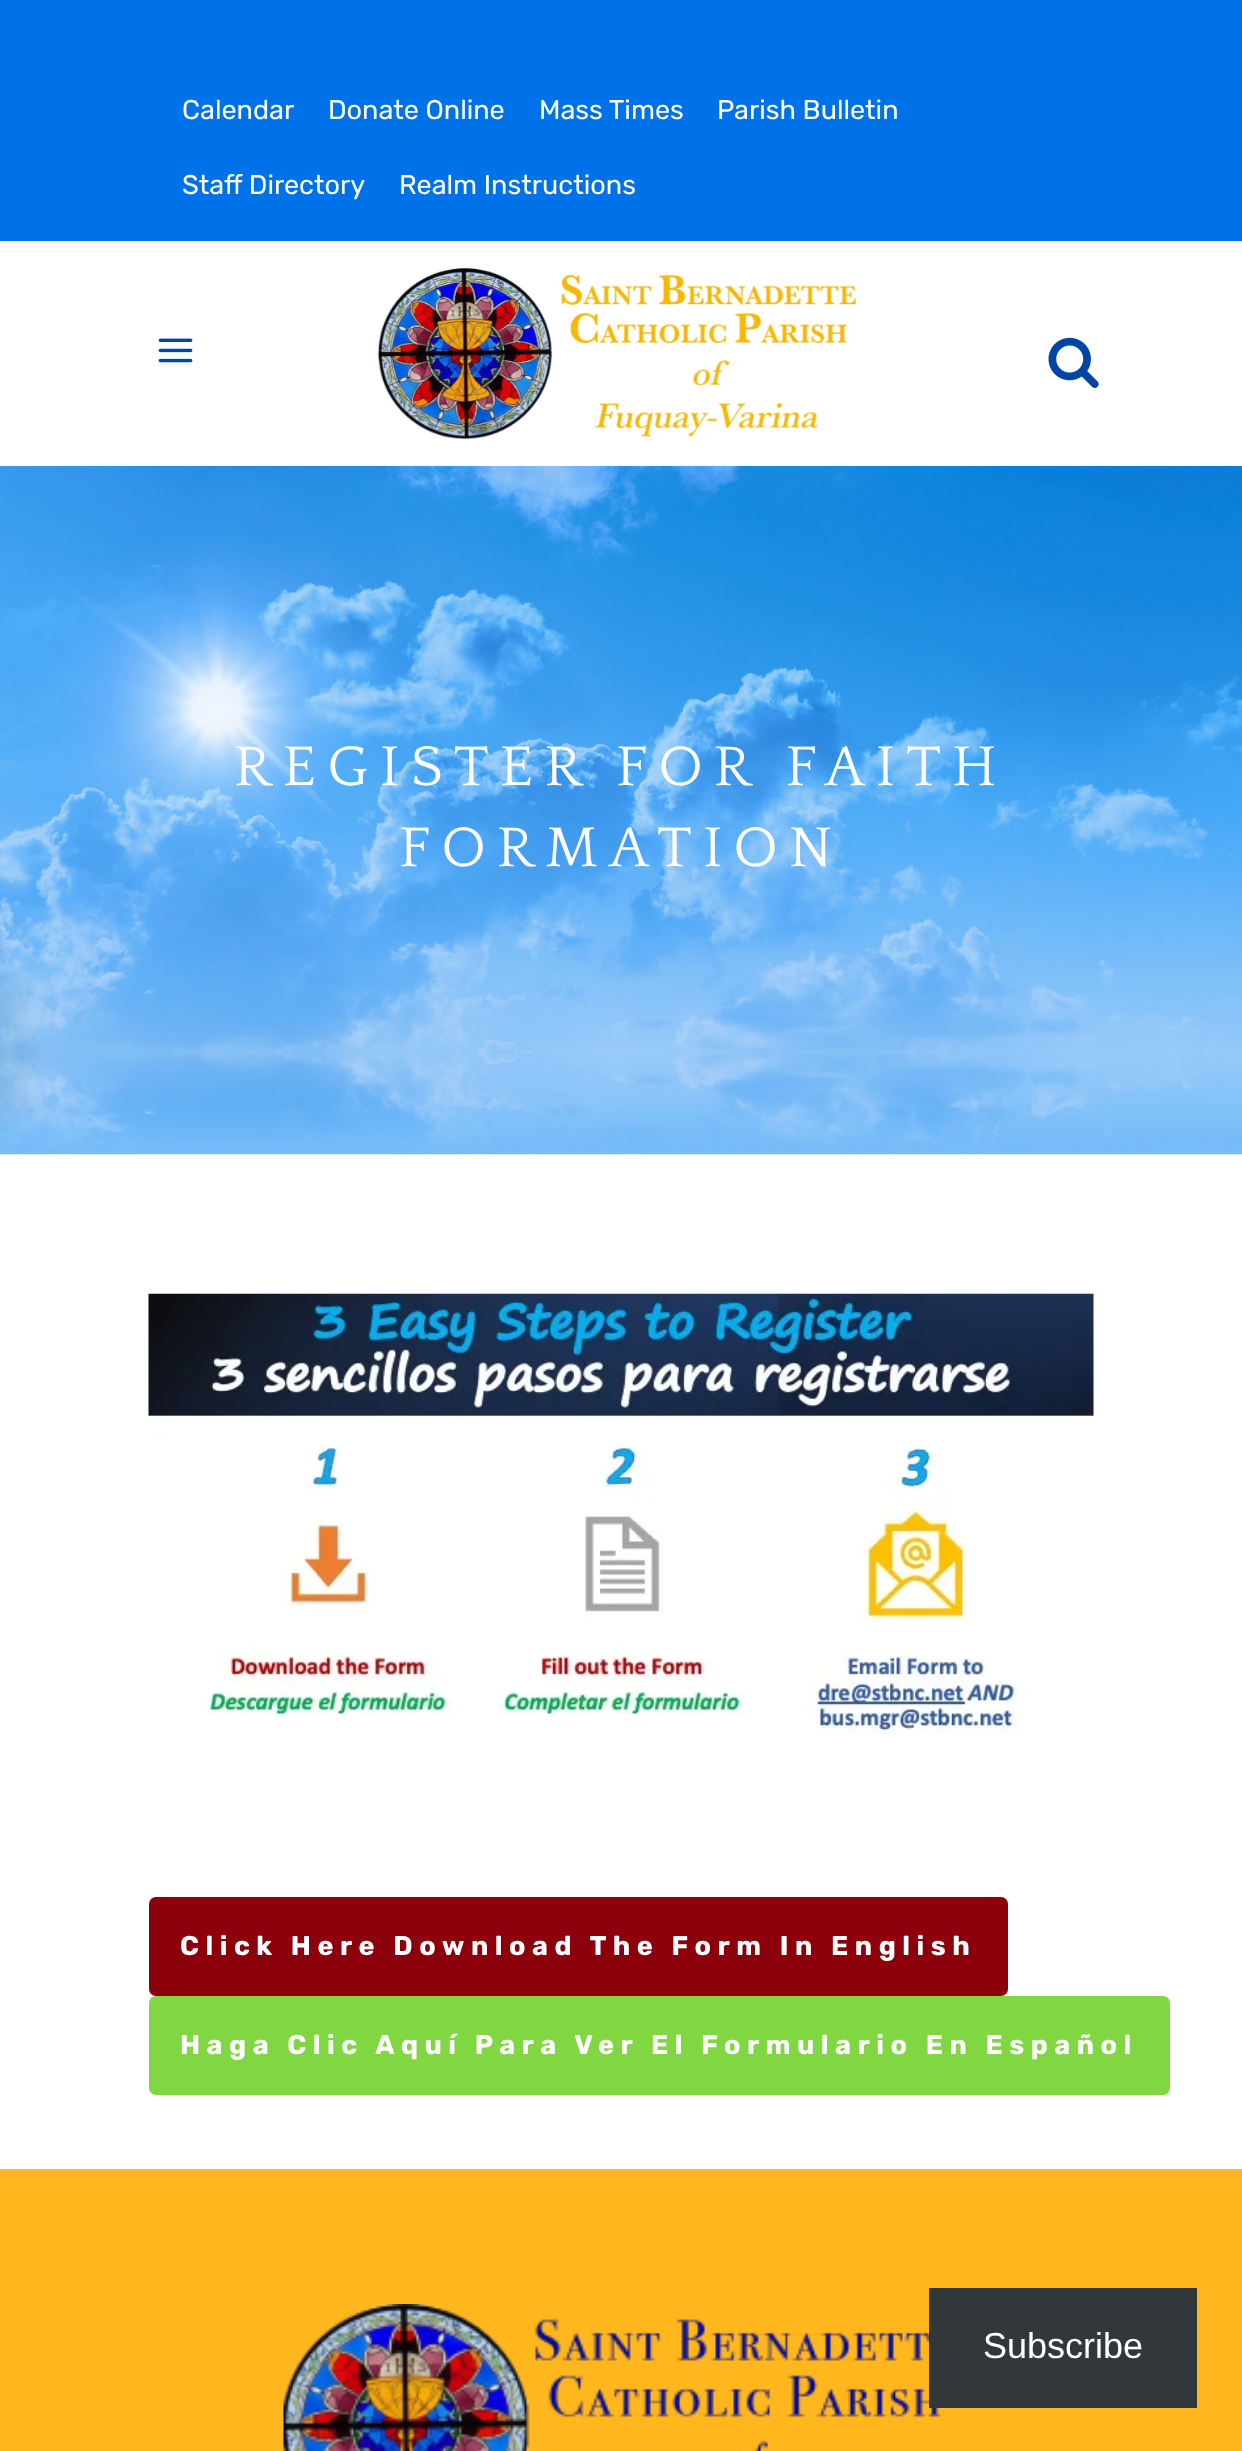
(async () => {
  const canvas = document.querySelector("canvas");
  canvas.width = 1242;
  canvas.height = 2451;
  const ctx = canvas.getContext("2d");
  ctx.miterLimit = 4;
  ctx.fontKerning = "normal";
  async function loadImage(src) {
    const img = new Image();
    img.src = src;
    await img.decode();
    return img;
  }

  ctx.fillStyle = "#ffffff";
  ctx.fillRect(0, 0, 1242, 2451);
  ctx.fillStyle = "#0072e9";
  ctx.fillRect(0, 0, 1242, 241);
  ctx.drawImage(await loadImage("img/1.png"), 158, 338, 35, 25);
  ctx.drawImage(await loadImage("img/2.png"), 377, 268, 480, 172);
  ctx.drawImage(await loadImage("img/3.png"), 1048, 337, 51, 51);
  ctx.drawImage(await loadImage("img/4.png"), 0, 466, 1242, 689);
  ctx.drawImage(await loadImage("img/5.png"), 148, 1293, 946, 442);
  ctx.fillStyle = "#8b000b";
  ctx.beginPath();
  ctx.roundRect(149, 1897, 859, 99, 7);
  ctx.fill();
  ctx.fillStyle = "#81d742";
  ctx.beginPath();
  ctx.roundRect(149, 1996, 1021, 99, 7);
  ctx.fill();
  ctx.fillStyle = "#ffb71d";
  ctx.fillRect(0, 2169, 1242, 282);
  ctx.drawImage(await loadImage("img/6.png"), 283, 2304, 658, 147);
  ctx.fillStyle = "#32373c";
  ctx.fillRect(929, 2288, 268, 120);
  ctx.font = "27px Rubik";
  ctx.fillStyle = "#ffffff";
  for (const [text, x, y] of [
    ["Calendar", 182, 119],
    ["Donate Online", 328, 119],
    ["Mass Times", 539, 119],
    ["Parish Bulletin", 717, 119],
    ["Staff Directory", 182, 194],
    ["Realm Instructions", 399, 194],
  ]) {
    ctx.fillText(text, x, y);
  }
  ctx.letterSpacing = "11.25px";
  ctx.font = "58.5px Quattrocento";
  ctx.fillText("REGISTER FOR FAITH", 234, 785);
  ctx.fillText("FORMATION", 399, 866);
  ctx.letterSpacing = "6.5px";
  ctx.font = "bold 27px Rubik";
  ctx.fillText("Click Here Download The Form In English", 180, 1955);
  ctx.fillText("Haga Clic Aquí Para Ver El Formulario En Español", 180, 2054);
  ctx.letterSpacing = "0px";
  ctx.font = "36px Liberation Sans";
  ctx.fillText("Subscribe", 983, 2358);
})();
